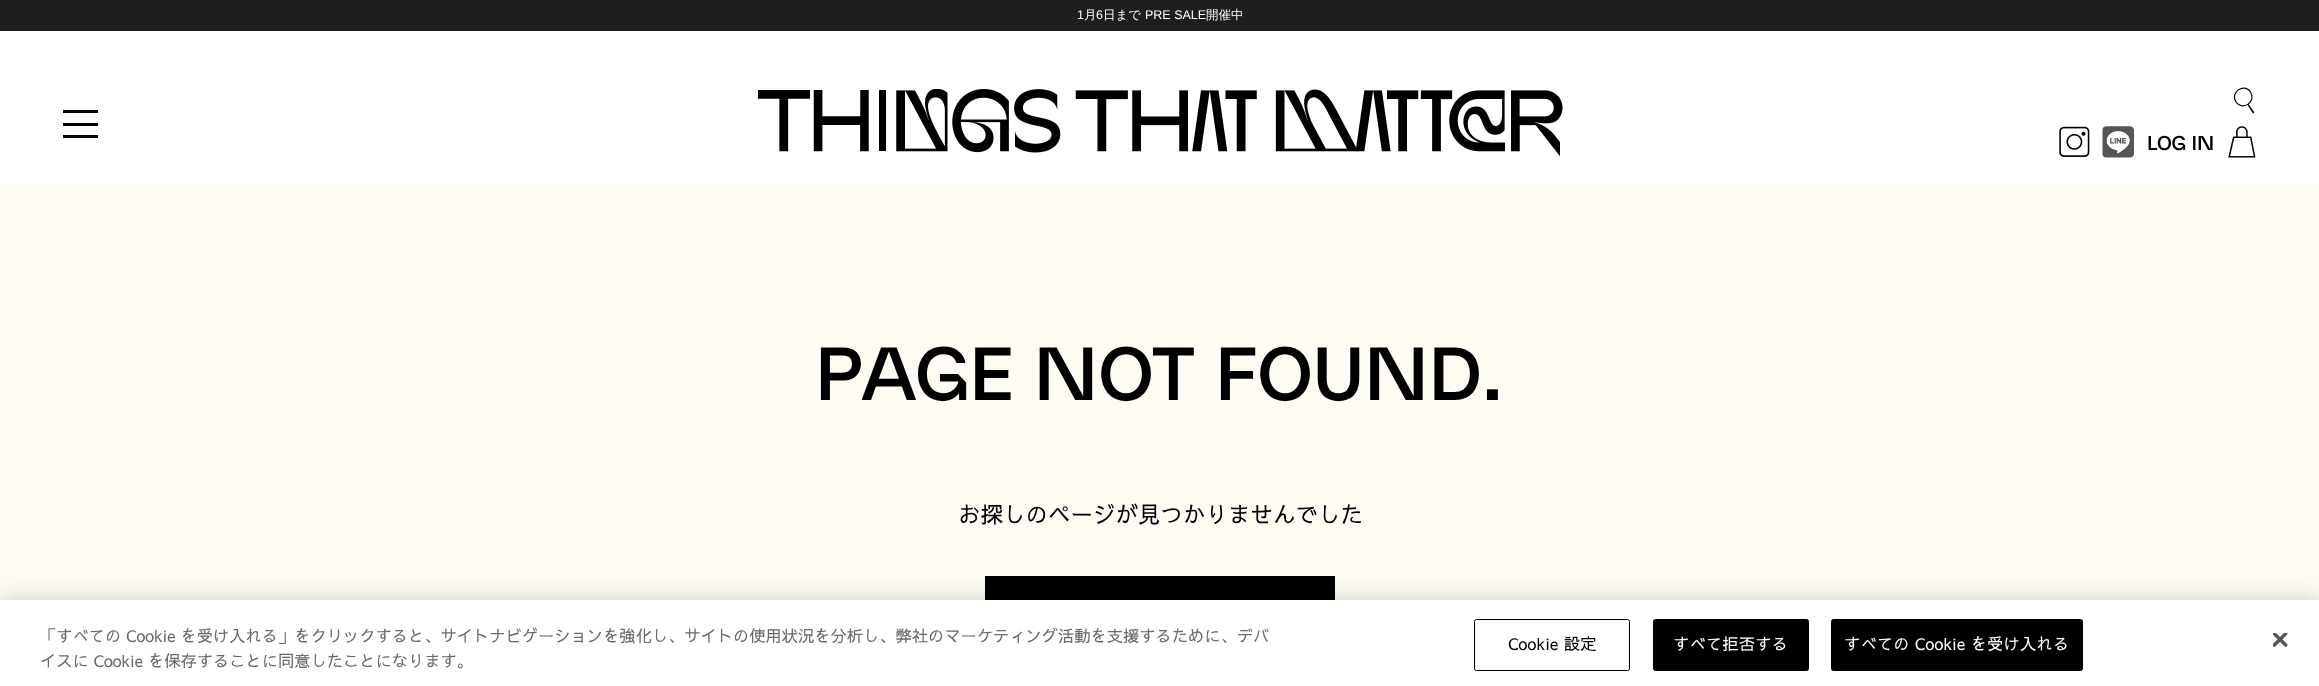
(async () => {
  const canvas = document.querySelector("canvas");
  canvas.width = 2319;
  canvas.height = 686;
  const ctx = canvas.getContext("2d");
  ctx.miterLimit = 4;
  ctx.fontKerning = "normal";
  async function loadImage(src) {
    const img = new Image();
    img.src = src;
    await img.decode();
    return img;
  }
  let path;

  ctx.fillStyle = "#ffffff";
  ctx.fillRect(0, 0, 2319, 686);
  for (const [x, y, w, h, color] of [
    [0, 0, 2319, 31, "#1e1e20"],
    [63, 110, 35, 3, "#000000"],
    [63, 123, 35, 3, "#000000"],
    [63, 135, 35, 3, "#000000"],
  ]) {
    ctx.fillStyle = color;
    ctx.fillRect(x, y, w, h);
  }
  ctx.drawImage(await loadImage("img/1.png"), 758, 89, 805, 67);
  path = new Path2D("M2250.5 92C2257 101.5 2242.5 111.5 2236 102C2229.5 92.5 2244 82.5 2250.5 92Z");
  ctx.strokeStyle = "#000000";
  ctx.lineWidth = 1.2;
  ctx.stroke(path);
  path = new Path2D("M2248.5 104L2254.5 112.5L2253 113.5L2247.5 105Z");
  ctx.fill(path);
  ctx.drawImage(await loadImage("img/2.png"), 2059, 126, 31, 31);
  ctx.drawImage(await loadImage("img/3.png"), 2102, 126, 32, 32);
  ctx.drawImage(await loadImage("img/4.png"), 2228, 126, 28, 32);
  ctx.fillStyle = "#fffbf4";
  ctx.fillRect(0, 184, 2319, 416);
  ctx.fillStyle = "#000000";
  ctx.fillRect(985, 576, 350, 24);
  ctx.fillStyle = "rgba(0, 0, 0, 0.2)";
  ctx.filter = "blur(11px)";
  ctx.beginPath();
  ctx.rect(0, 600, 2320, 86);
  ctx.fill();
  ctx.filter = "none";
  ctx.fillStyle = "#ffffff";
  ctx.fillRect(0, 600, 2319, 86);
  ctx.beginPath();
  ctx.roundRect(1474.5, 619.5, 155, 51, 2);
  ctx.lineWidth = 1;
  ctx.stroke();
  ctx.fillStyle = "#000000";
  ctx.beginPath();
  ctx.roundRect(1653.5, 619.5, 155, 51, 2);
  ctx.fill();
  ctx.stroke();
  ctx.beginPath();
  ctx.roundRect(1831.5, 619.5, 251, 51, 2);
  ctx.fill();
  ctx.stroke();
  ctx.drawImage(await loadImage("img/5.png"), 2273, 633, 15, 14);
  ctx.font = "12.5px Liberation Sans";
  ctx.fillStyle = "#ffffff";
  ctx.fillText("1", 1077, 19);
  ctx.font = "500 12.5px WenQuanYi Zen Hei";
  ctx.fillText("月", 1084, 19);
  ctx.font = "12.5px Liberation Sans";
  ctx.fillText("6", 1096, 19);
  ctx.font = "500 12.5px WenQuanYi Zen Hei";
  ctx.fillText("日まで", 1103, 19);
  ctx.font = "12.5px Liberation Sans";
  ctx.fillText("PRE SALE", 1145, 19);
  ctx.font = "500 12.5px WenQuanYi Zen Hei";
  ctx.fillText("開催中", 1206, 19);
  ctx.font = "500 20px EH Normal";
  ctx.fillStyle = "#000000";
  ctx.fillText("LOG IN", 2147, 150);
  ctx.font = "500 75px EH Normal";
  ctx.fillText("PAGE NOT FOUND.", 815, 400);
  ctx.font = "22.5px Sawarabi Gothic";
  ctx.fillText("お探しのページが見つかりませんでした", 958, 523);
  ctx.font = "16.25px Sawarabi Gothic";
  ctx.fillStyle = "#696969";
  ctx.fillText("「すべての Cookie を受け入れる」をクリックすると、サイトナビゲーションを強化し、サイトの使用状況を分析し、弊社のマーケティング活動を支援するために、デバ", 40, 642);
  ctx.fillText("イスに Cookie を保存することに同意したことになります。", 40, 667);
  ctx.letterSpacing = "0.2px";
  ctx.fillStyle = "#000000";
  ctx.fillText("Cookie 設定", 1508, 650);
  ctx.fillStyle = "#ffffff";
  ctx.fillText("すべて拒否する", 1673, 650);
  ctx.fillText("すべての Cookie を受け入れる", 1844, 650);
})();
